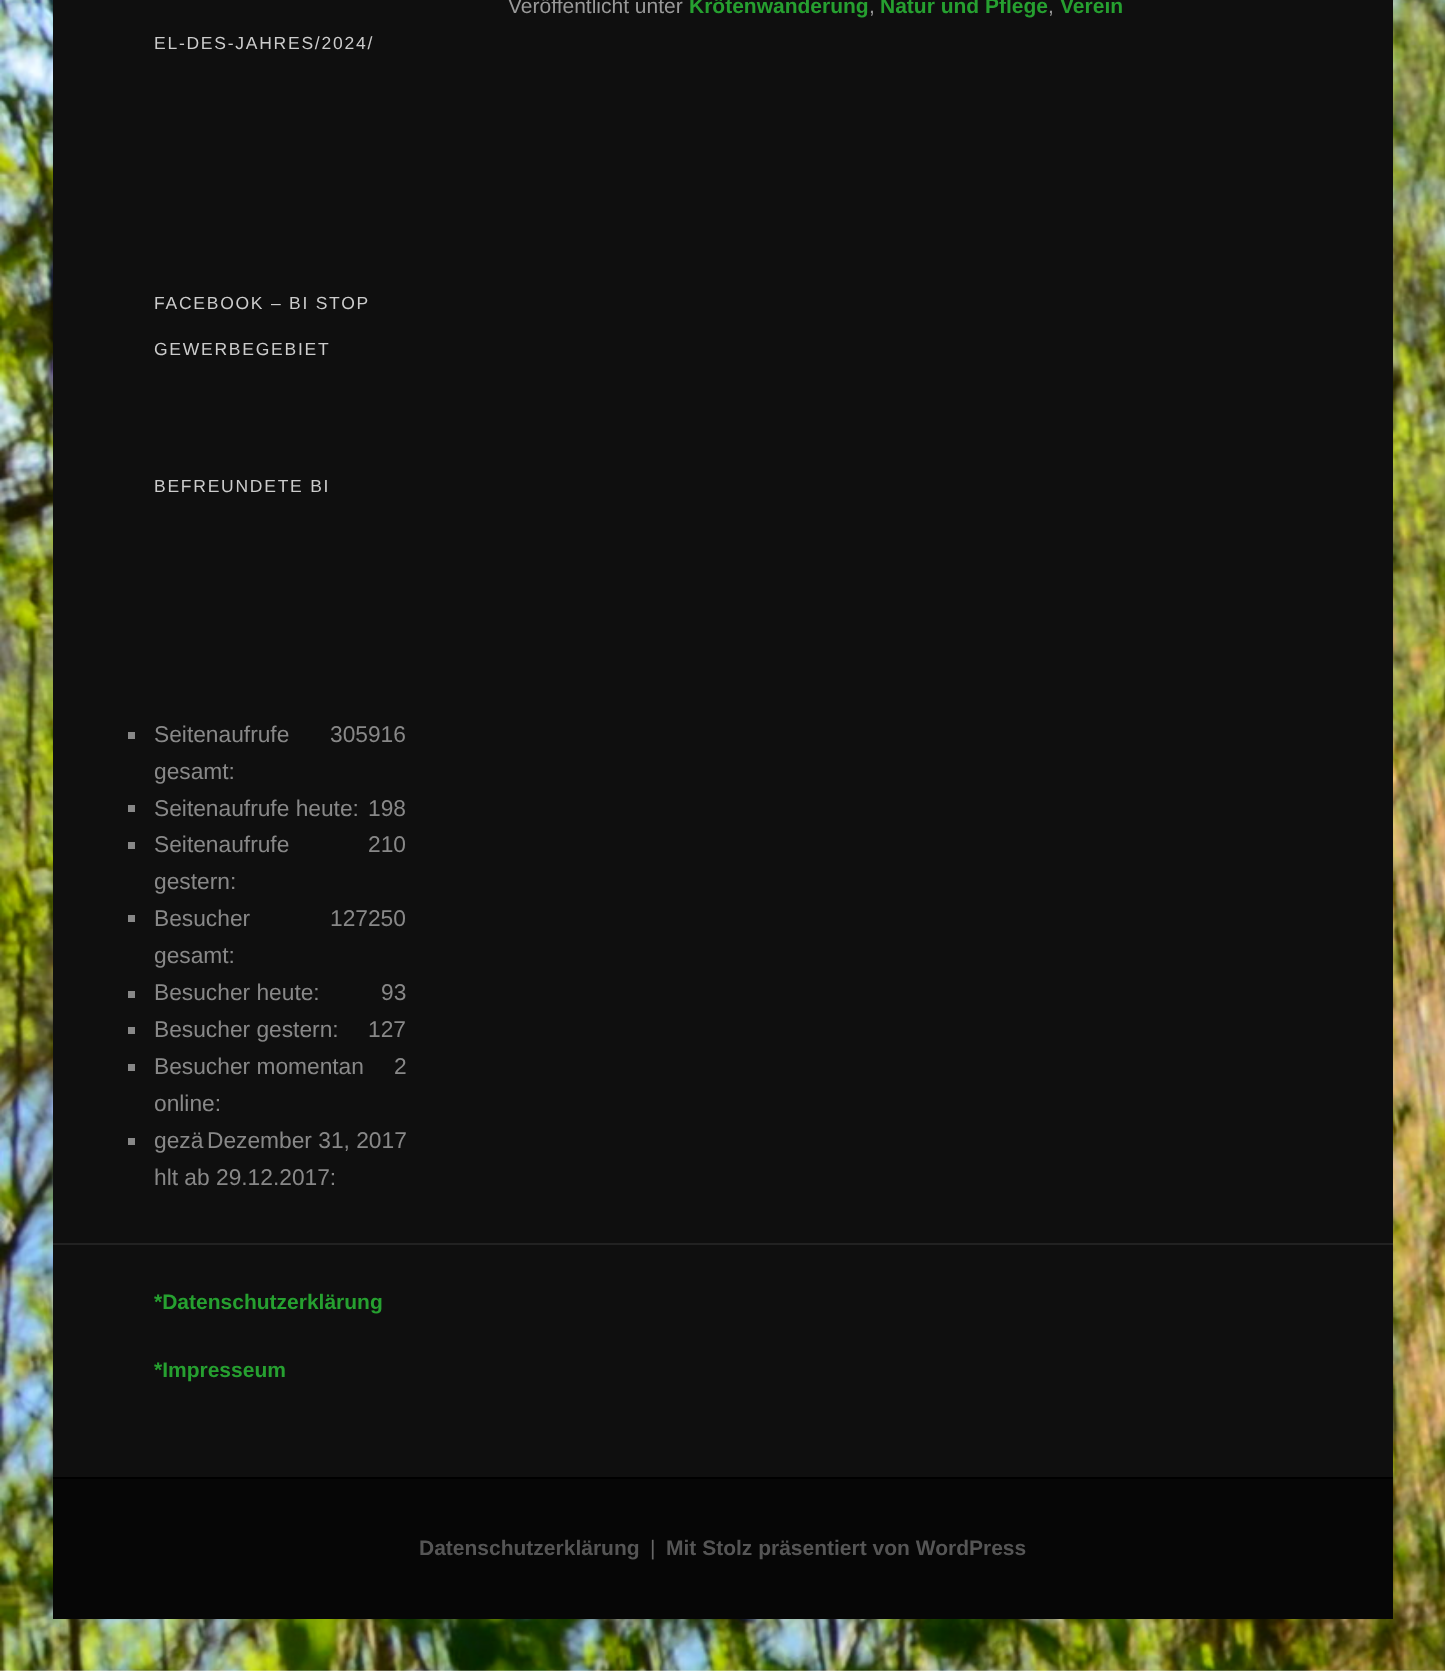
(async () => {
  const canvas = document.querySelector("canvas");
  canvas.width = 1445;
  canvas.height = 1671;
  const ctx = canvas.getContext("2d");
  ctx.miterLimit = 4;
  ctx.fontKerning = "normal";
  async function loadImage(src) {
    const img = new Image();
    img.src = src;
    await img.decode();
    return img;
  }

  ctx.fillStyle = "#ffffff";
  ctx.fillRect(0, 0, 1445, 1671);
  ctx.drawImage(await loadImage("img/1.png"), 0, 0, 1445, 1671);
  for (const [x, y, w, h, color] of [
    [53, 0, 1340, 1477, "#0f0f0f"],
    [128, 732, 7, 7, "#888888"],
    [128, 805, 7, 7, "#888888"],
    [128, 842, 7, 7, "#888888"],
    [128, 915, 7, 7, "#888888"],
    [128, 991, 7, 7, "#888888"],
    [128, 1027, 7, 7, "#888888"],
    [128, 1064, 7, 7, "#888888"],
    [128, 1138, 7, 7, "#888888"],
    [53, 1243, 1340, 2, "#222222"],
    [53, 1479, 1340, 140, "#060606"],
    [53, 1477, 1340, 2, "#000000"],
  ]) {
    ctx.fillStyle = color;
    ctx.fillRect(x, y, w, h);
  }
  ctx.font = "21px Liberation Sans";
  ctx.fillStyle = "#999999";
  ctx.fillText("Veröffentlicht unter", 508, 13);
  ctx.font = "bold 21px Liberation Sans";
  ctx.fillStyle = "#26a030";
  ctx.fillText("Krötenwanderung", 689, 13);
  ctx.font = "21px Liberation Sans";
  ctx.fillStyle = "#999999";
  ctx.fillText(",", 869, 13);
  ctx.font = "bold 21px Liberation Sans";
  ctx.fillStyle = "#26a030";
  ctx.fillText("Natur und Pflege", 880, 13);
  ctx.font = "21px Liberation Sans";
  ctx.fillStyle = "#999999";
  ctx.fillText(",", 1048, 13);
  ctx.font = "bold 21px Liberation Sans";
  ctx.fillStyle = "#26a030";
  ctx.fillText("Verein", 1060, 13);
  ctx.letterSpacing = "1.75px";
  ctx.font = "17.5px Liberation Sans";
  ctx.fillStyle = "#cccccc";
  for (const [text, x, y] of [
    ["EL-DES-JAHRES/2024/", 154, 49],
    ["FACEBOOK – BI STOP", 154, 309],
    ["GEWERBEGEBIET", 154, 355],
    ["BEFREUNDETE BI", 154, 492],
  ]) {
    ctx.fillText(text, x, y);
  }
  ctx.letterSpacing = "0px";
  ctx.font = "22.75px Liberation Sans";
  ctx.fillStyle = "#888888";
  for (const [text, x, y] of [
    ["Seitenaufrufe", 154, 742],
    ["305916", 330, 742],
    ["gesamt:", 154, 779],
    ["Seitenaufrufe heute:", 154, 816],
    ["198", 368, 816],
    ["Seitenaufrufe", 154, 852],
    ["210", 368, 852],
    ["gestern:", 154, 889],
    ["Besucher", 154, 926],
    ["127250", 330, 926],
    ["gesamt:", 154, 963],
    ["Besucher heute:", 154, 1000],
    ["93", 381, 1000],
    ["Besucher gestern:", 154, 1037],
    ["127", 368, 1037],
    ["Besucher momentan", 154, 1074],
    ["2", 394, 1074],
    ["online:", 154, 1111],
    ["gezä", 154, 1148],
    ["Dezember 31, 2017", 207, 1148],
    ["hlt ab 29.12.2017:", 154, 1185],
  ]) {
    ctx.fillText(text, x, y);
  }
  ctx.font = "bold 21px Liberation Sans";
  ctx.fillStyle = "#26a030";
  ctx.fillText("*Datenschutzerklärung", 154, 1309);
  ctx.fillText("*Impresseum", 154, 1377);
  ctx.fillStyle = "#555555";
  ctx.fillText("Datenschutzerklärung", 419, 1555);
  ctx.font = "21px Liberation Sans";
  ctx.fillStyle = "#666666";
  ctx.fillText("|", 650, 1555);
  ctx.font = "bold 21px Liberation Sans";
  ctx.fillStyle = "#555555";
  ctx.fillText("Mit Stolz präsentiert von WordPress", 666, 1555);
})();
